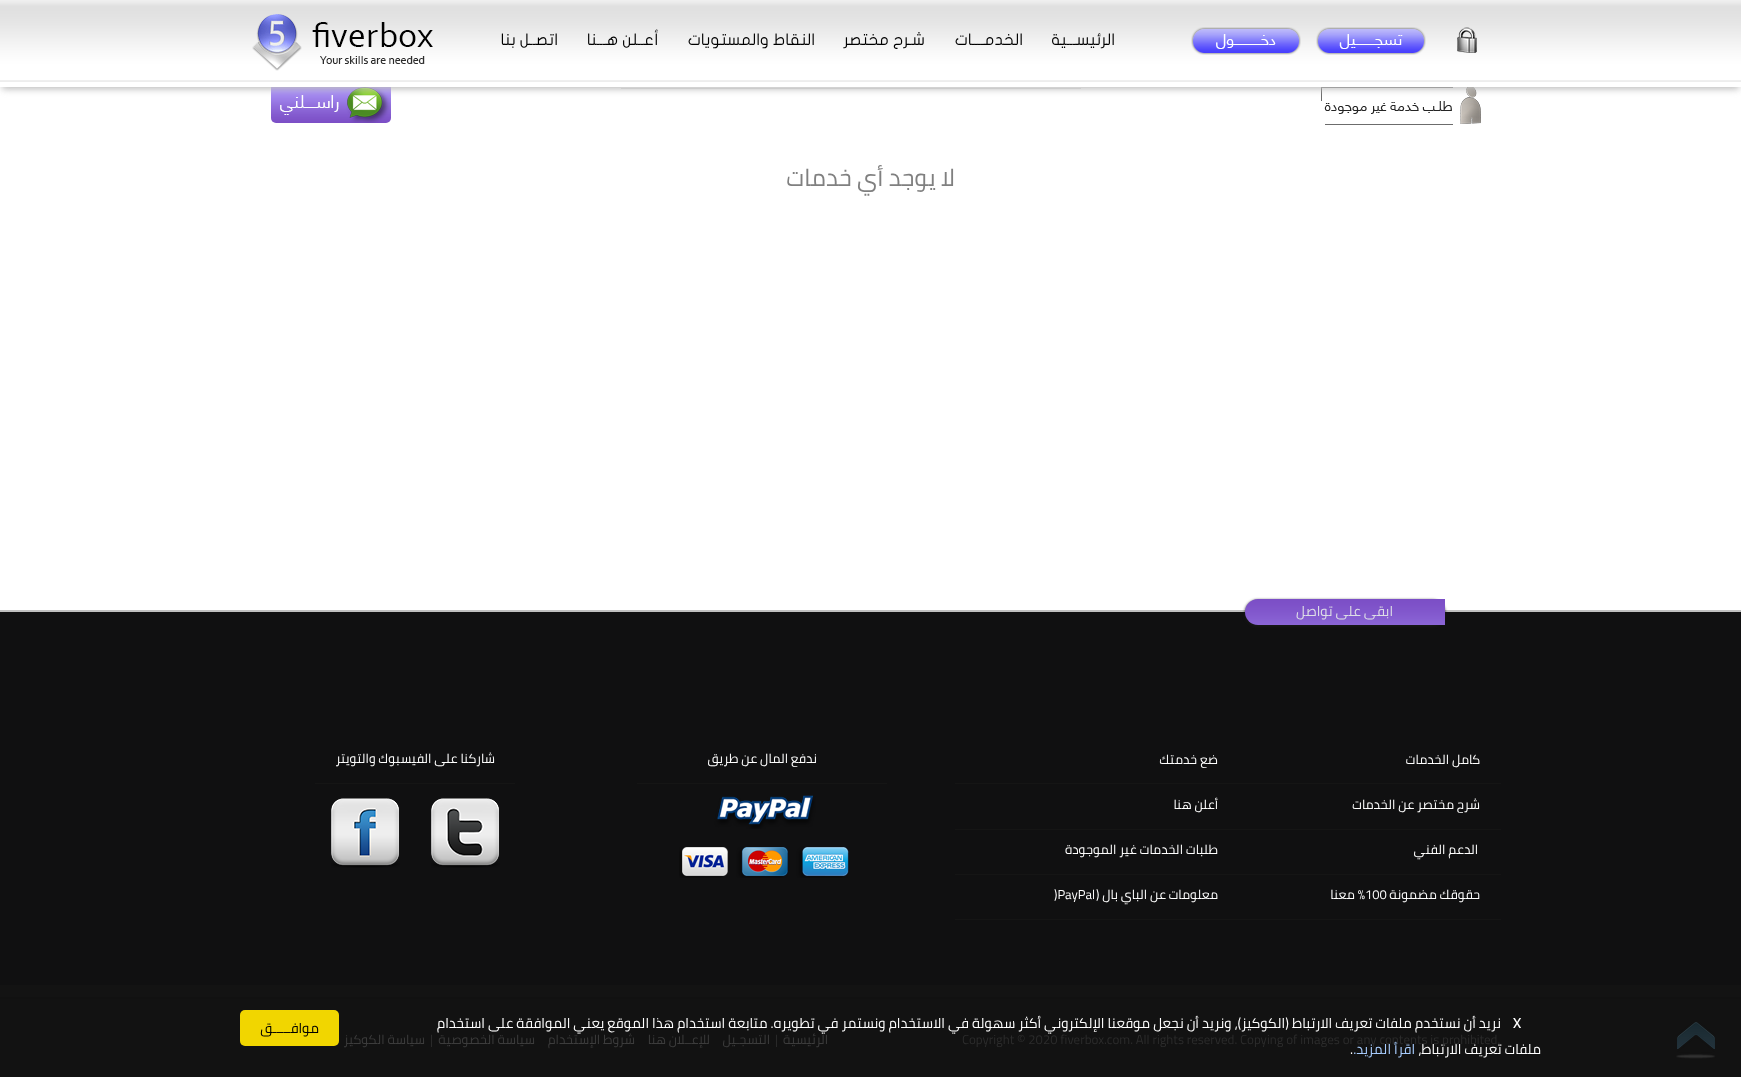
(async () => {
  const canvas = document.querySelector("canvas");
  canvas.width = 1741;
  canvas.height = 1077;
  const ctx = canvas.getContext("2d");
  ctx.miterLimit = 4;
  ctx.fontKerning = "normal";
  async function loadImage(src) {
    const img = new Image();
    img.src = src;
    await img.decode();
    return img;
  }

  ctx.fillStyle = "#ffffff";
  ctx.fillRect(0, 0, 1741, 1077);
  ctx.fillStyle = "#121212";
  ctx.fillRect(0, 999, 1741, 78);
  ctx.drawImage(await loadImage("img/1.png"), 1676, 1022, 40, 37);
  ctx.drawImage(await loadImage("img/7.png"), 1321, 87, 160, 38);
  ctx.fillStyle = "#e0e0e0";
  ctx.fillRect(621, 88, 460, 1);
  ctx.drawImage(await loadImage("img/8.png"), 271, 87, 120, 36);
  ctx.fillStyle = "#bbbbbb";
  ctx.filter = "blur(3.5px)";
  ctx.beginPath();
  ctx.rect(2, 6, 1737, 83);
  ctx.fill();
  ctx.filter = "none";
  ctx.drawImage(await loadImage("img/2.png"), 0, 0, 1741, 82);
  ctx.fillStyle = "#ffffff";
  ctx.fillRect(0, 82, 1741, 5);
  ctx.drawImage(await loadImage("img/3.png"), 1457, 27, 20, 26);
  ctx.drawImage(await loadImage("img/4.png"), 1316, 27, 110, 28);
  ctx.drawImage(await loadImage("img/5.png"), 1191, 27, 110, 28);
  ctx.drawImage(await loadImage("img/6.png"), 252, 14, 181, 57);
  for (const [x, y, w, h, color] of [
    [0, 612, 1741, 373, "#101011"],
    [0, 985, 1741, 12, "#131313"],
    [0, 610, 1741, 2, "#c0c0c0"],
  ]) {
    ctx.fillStyle = color;
    ctx.fillRect(x, y, w, h);
  }
  ctx.fillStyle = "#1b1b1b";
  ctx.filter = "blur(1.5px)";
  ctx.beginPath();
  ctx.roundRect(1245, 600, 200, 26, 13);
  ctx.fill();
  ctx.filter = "none";
  ctx.drawImage(await loadImage("img/9.png"), 1245, 599, 200, 26);
  ctx.fillStyle = "#151515";
  ctx.fillRect(955, 783, 546, 1);
  ctx.fillRect(637, 783, 250, 1);
  ctx.drawImage(await loadImage("img/10.png"), 679, 795, 170, 83);
  ctx.fillRect(315, 783, 200, 1);
  ctx.drawImage(await loadImage("img/11.png"), 431, 798, 69, 70);
  ctx.drawImage(await loadImage("img/12.png"), 331, 798, 69, 70);
  for (const [x, y, w, h, color] of [
    [955, 829, 546, 1, "#151515"],
    [955, 874, 546, 1, "#151515"],
    [955, 919, 546, 1, "#151515"],
  ]) {
    ctx.fillStyle = color;
    ctx.fillRect(x, y, w, h);
  }
  ctx.fillStyle = "#f1d600";
  ctx.beginPath();
  ctx.roundRect(240, 1010, 99, 36, 5);
  ctx.fill();
  ctx.fillStyle = "#111111";
  ctx.fillRect(0, 997, 1741, 2);
  ctx.direction = "rtl";
  ctx.font = "16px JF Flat";
  ctx.fillStyle = "#000000";
  for (const [text, x, y] of [
    ["الرئيســـية", 1115, 45],
    ["الخدمــــات", 1023, 45],
    ["شـرح مختصر", 925, 45],
    ["النقاط والمستويات", 815, 45],
    ["أعــلن هـــنا", 659, 45],
    ["اتصــل بنا", 558, 45],
  ]) {
    ctx.fillText(text, x, y);
  }
  ctx.font = "24px Cairo";
  ctx.fillStyle = "#808080";
  ctx.fillText("لا يوجد أي خدمات", 955, 186);
  ctx.font = "14px Cairo";
  ctx.fillStyle = "#dedfe6";
  ctx.fillText("ابقى على تواصل", 1393, 616);
  ctx.font = "13px Cairo";
  ctx.fillStyle = "#ffffff";
  for (const [text, x, y] of [
    ["كامل الخدمات", 1480, 764],
    ["ضع خدمتك", 1218, 764],
    ["ندفع المال عن طريق", 817, 763],
    ["شاركنا على الفيسبوك والتويتر", 495, 763],
    ["شرح مختصر عن الخدمات", 1480, 809],
    ["أعلن هنا", 1218, 809],
    ["الدعم الفني", 1478, 854],
    ["طلبات الخدمات غير الموجودة", 1218, 854],
    ["حقوقك مضمونة", 1480, 899],
  ]) {
    ctx.fillText(text, x, y);
  }
  ctx.direction = "ltr";
  ctx.fillText("100", 1365, 899);
  ctx.direction = "rtl";
  for (const [text, x, y] of [
    ["% معنا", 1365, 899],
    ["معلومات", 1218, 899],
    ["عن الباي بال (", 1166, 899],
  ]) {
    ctx.fillText(text, x, y);
  }
  ctx.direction = "ltr";
  ctx.fillText(")PayPal", 1054, 899);
  ctx.font = "bold 14px Cairo";
  ctx.fillText("X", 1513, 1028);
  ctx.direction = "rtl";
  ctx.font = "14px Cairo";
  ctx.fillText("نريد أن نستخدم ملفات تعريف الارتباط (الكوكيز)، ونريد أن نجعل موقعنا الإلكتروني أكثر سهولة في الاستخدام ونستمر في تطويره. متابعة استخدام هذا الموقع يعني الموافقة على استخدام", 1501, 1028);
  ctx.fillStyle = "#000000";
  ctx.fillText("موافـــــق", 319, 1033);
  ctx.fillStyle = "#ffffff";
  ctx.fillText("ملفات تعريف الارتباط،", 1541, 1054);
  ctx.direction = "ltr";
  ctx.fillText(".", 1350, 1054);
  ctx.font = "13px Cairo";
  ctx.fillStyle = "#2c2c2c";
  ctx.fillText("Copyright © 2020 fiverbox.com. All rights reserved. Copying of images or any contents is prohibited.", 962, 1044);
  ctx.direction = "rtl";
  ctx.font = "14px Cairo";
  ctx.fillStyle = "#a9ceff";
  ctx.fillText("اقرأ المزيد.", 1415, 1054);
  ctx.font = "13px Cairo";
  ctx.fillStyle = "#3c3c3c";
  ctx.fillText("الرئيسية", 828, 1044);
  ctx.direction = "ltr";
  ctx.fillStyle = "#2c2c2c";
  ctx.fillText("|", 775, 1044);
  ctx.direction = "rtl";
  ctx.fillStyle = "#3c3c3c";
  for (const [text, x, y] of [
    ["التسجـيل", 770, 1044],
    ["للإعــلان هنا", 710, 1044],
    ["شروط الإستخدام", 635, 1044],
    ["سياسة الخصوصية", 535, 1044],
  ]) {
    ctx.fillText(text, x, y);
  }
  ctx.direction = "ltr";
  ctx.fillStyle = "#2c2c2c";
  ctx.fillText("|", 430, 1044);
  ctx.direction = "rtl";
  ctx.fillStyle = "#3c3c3c";
  ctx.fillText("سياسة الكوكيز", 425, 1044);
})();
